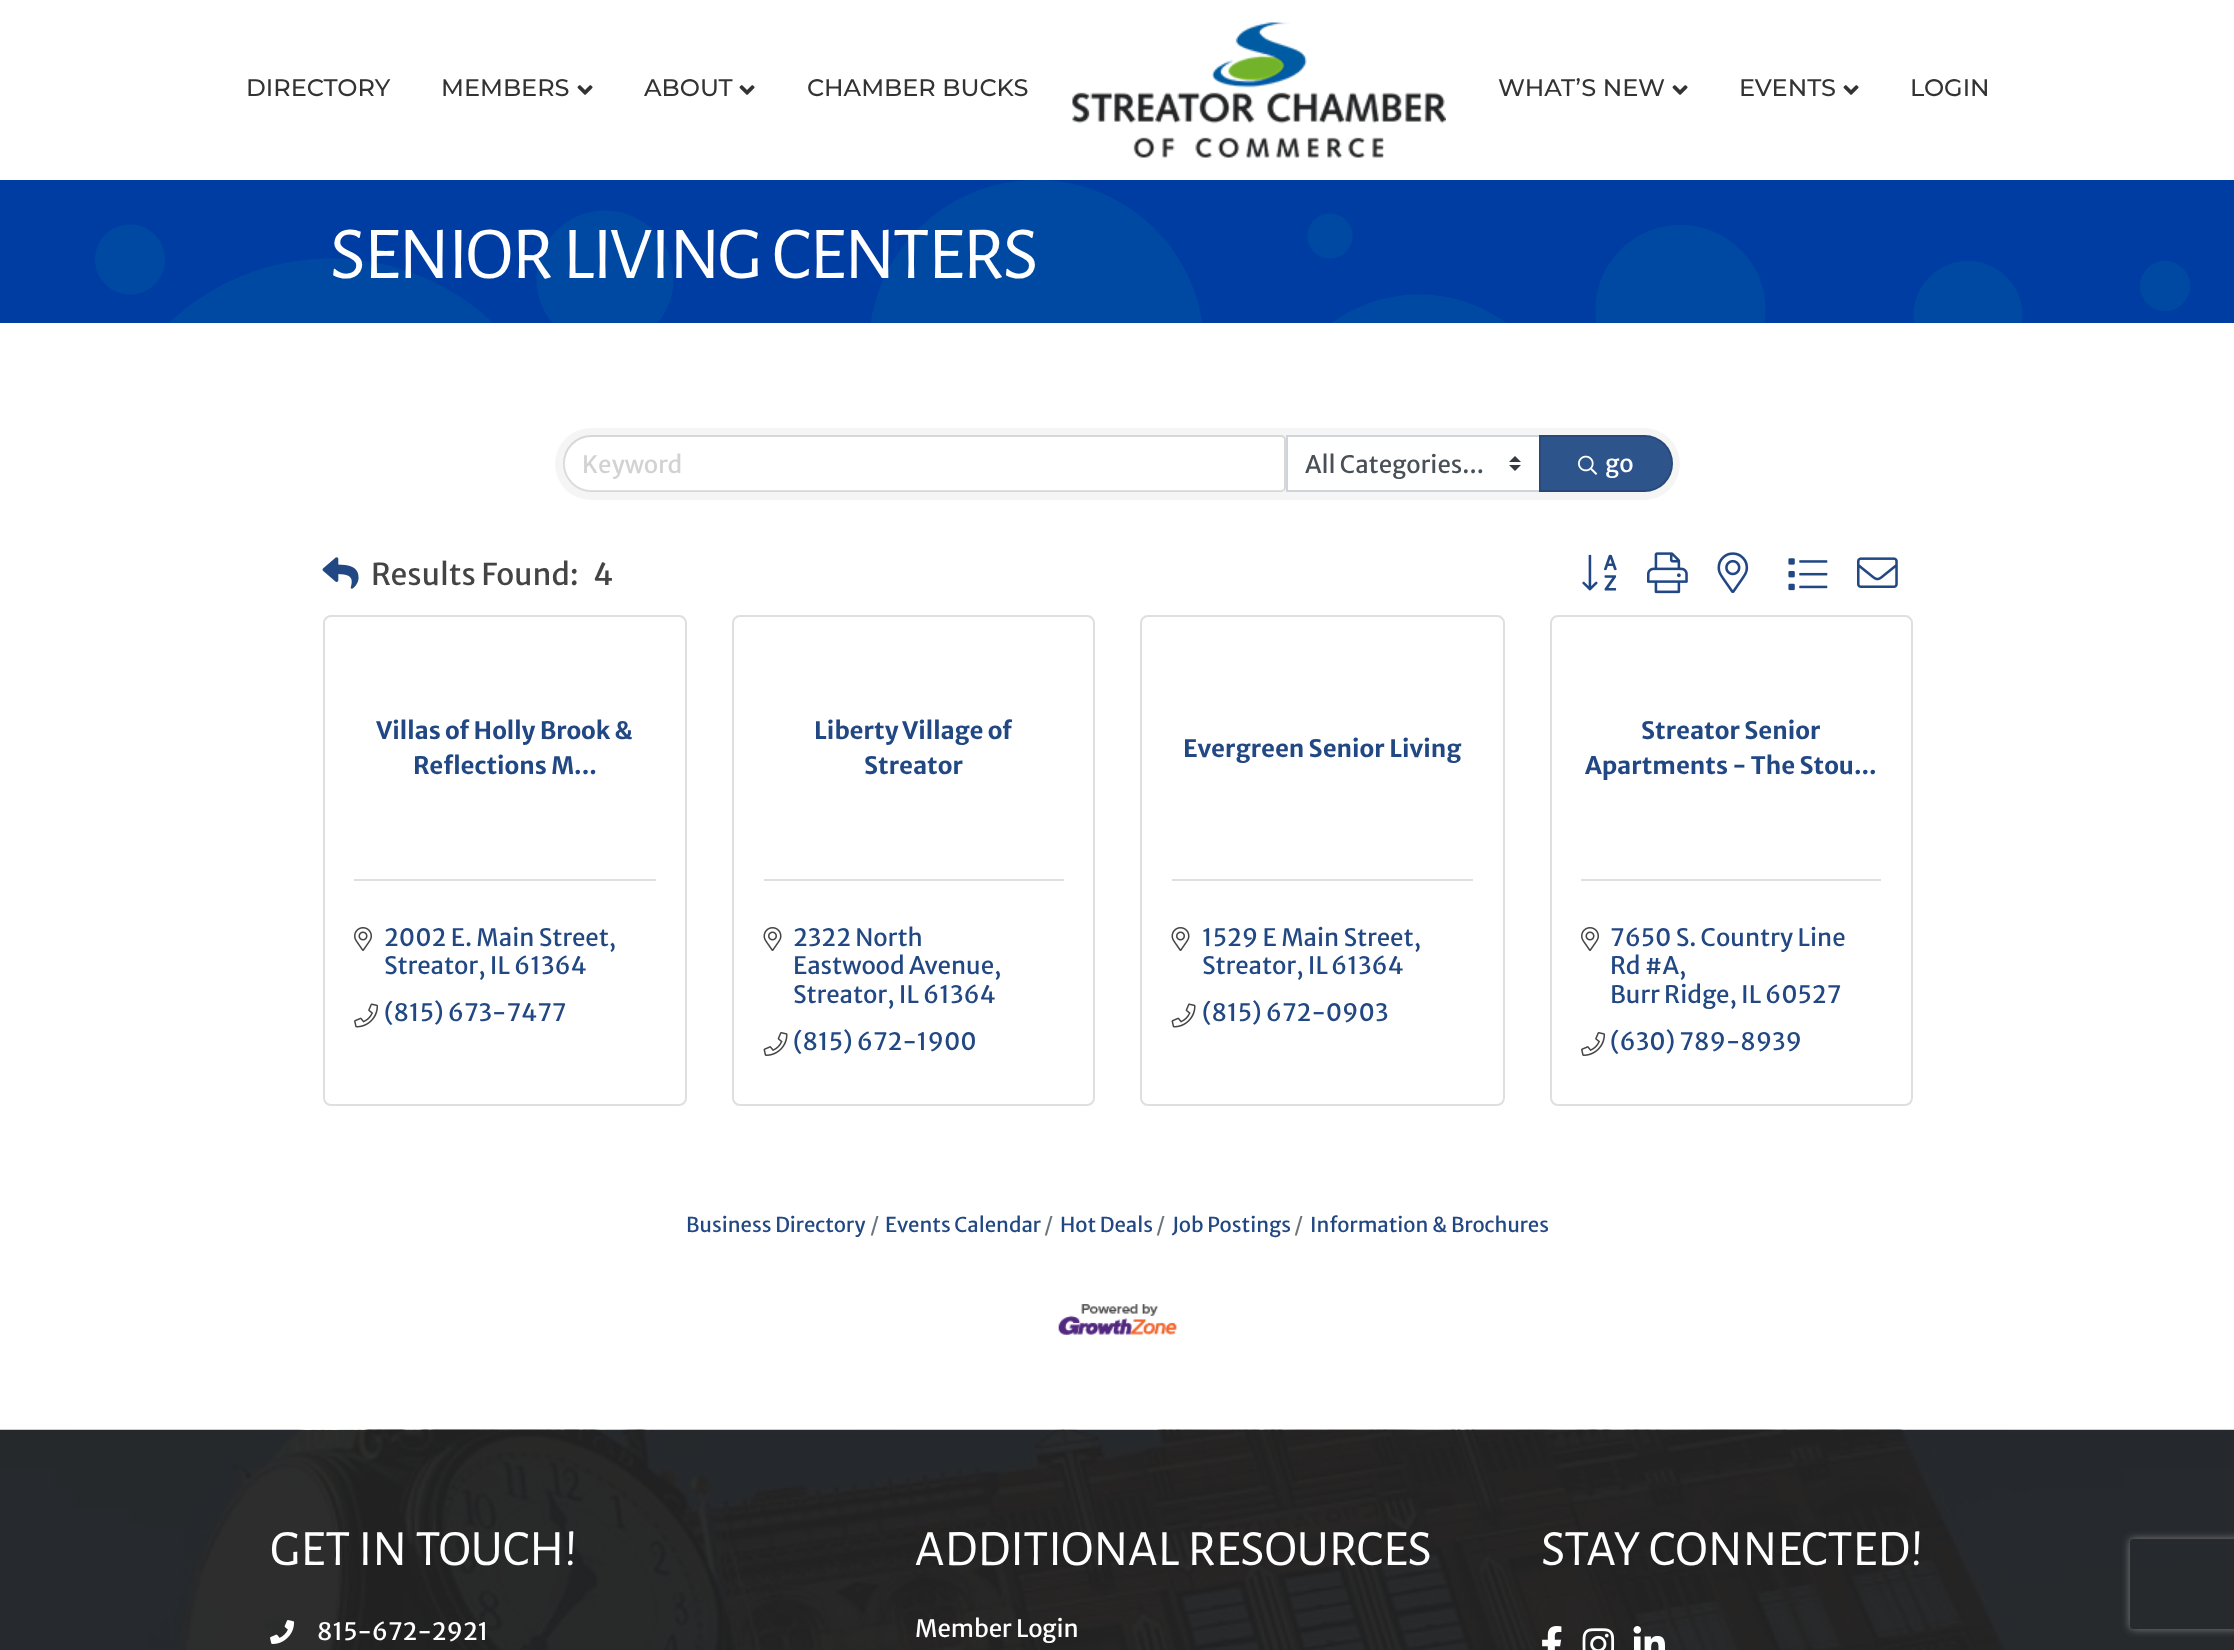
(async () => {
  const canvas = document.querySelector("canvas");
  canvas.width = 2234;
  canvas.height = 1650;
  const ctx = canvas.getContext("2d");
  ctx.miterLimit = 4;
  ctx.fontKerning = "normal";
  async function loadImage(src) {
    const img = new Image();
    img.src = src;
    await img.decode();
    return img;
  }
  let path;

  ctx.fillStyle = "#ffffff";
  ctx.fillRect(0, 0, 2234, 1650);
  ctx.drawImage(await loadImage("img/1.png"), 577, 85, 16, 10);
  ctx.drawImage(await loadImage("img/1.png"), 739, 85, 16, 10);
  ctx.drawImage(await loadImage("img/2.png"), 1072, 22, 374, 136);
  ctx.drawImage(await loadImage("img/1.png"), 1672, 85, 16, 10);
  ctx.drawImage(await loadImage("img/1.png"), 1843, 85, 16, 10);
  ctx.fillStyle = "#003da2";
  ctx.fillRect(0, 180, 2234, 143);
  ctx.drawImage(await loadImage("img/3.png"), 95, 180, 2095, 143);
  ctx.fillStyle = "#f5f5f5";
  ctx.beginPath();
  ctx.roundRect(555, 428, 1125, 72, 36);
  ctx.fill();
  ctx.fillStyle = "#ffffff";
  ctx.beginPath();
  ctx.roundRect(564, 437, 720, 54, [27, 3, 3, 27]);
  ctx.fill();
  ctx.beginPath();
  ctx.roundRect(564, 436, 721, 55, [27.5, 4, 4, 27.5]);
  ctx.strokeStyle = "rgba(0, 0, 0, 0.12)";
  ctx.lineWidth = 2;
  ctx.stroke();
  ctx.fillRect(1288, 437, 251, 53);
  ctx.drawImage(await loadImage("img/4.png"), 1509, 456, 12, 15);
  ctx.strokeStyle = "#ced4da";
  ctx.strokeRect(1287, 436, 253, 55);
  ctx.fillStyle = "#2d548b";
  ctx.beginPath();
  ctx.roundRect(1539, 435, 134, 57, [0, 28.5, 28.5, 0]);
  ctx.fill();
  ctx.beginPath();
  ctx.roundRect(1540, 436, 132, 55, [0, 27.5, 27.5, 0]);
  ctx.strokeStyle = "rgba(0, 0, 0, 0.12)";
  ctx.stroke();
  ctx.drawImage(await loadImage("img/5.png"), 1578, 455, 20, 20);
  ctx.drawImage(await loadImage("img/6.png"), 322, 557, 37, 32);
  ctx.drawImage(await loadImage("img/7.png"), 1582, 554, 35, 37);
  ctx.drawImage(await loadImage("img/8.png"), 1647, 552, 41, 42);
  ctx.drawImage(await loadImage("img/9.png"), 1717, 552, 32, 42);
  ctx.drawImage(await loadImage("img/10.png"), 1788, 558, 40, 33);
  ctx.drawImage(await loadImage("img/11.png"), 1857, 557, 41, 31);
  ctx.beginPath();
  ctx.roundRect(324, 616, 362, 489, 7);
  ctx.strokeStyle = "#dfdfdf";
  ctx.stroke();
  ctx.fillStyle = "#dfdfdf";
  ctx.fillRect(354, 879, 302, 2);
  ctx.drawImage(await loadImage("img/12.png"), 354, 927, 18, 24);
  ctx.drawImage(await loadImage("img/13.png"), 354, 1003, 25, 25);
  ctx.beginPath();
  ctx.roundRect(733, 616, 361, 489, 7);
  ctx.stroke();
  ctx.fillRect(764, 879, 300, 2);
  ctx.drawImage(await loadImage("img/14.png"), 763, 927, 19, 24);
  ctx.drawImage(await loadImage("img/15.png"), 763, 1032, 25, 24);
  ctx.beginPath();
  ctx.roundRect(1141, 616, 363, 489, 7);
  ctx.stroke();
  ctx.fillRect(1172, 879, 301, 2);
  ctx.drawImage(await loadImage("img/14.png"), 1171, 927, 19, 24);
  ctx.drawImage(await loadImage("img/16.png"), 1171, 1003, 25, 25);
  ctx.beginPath();
  ctx.roundRect(1551, 616, 361, 489, 7);
  ctx.stroke();
  ctx.fillRect(1581, 879, 300, 2);
  ctx.drawImage(await loadImage("img/12.png"), 1581, 927, 18, 24);
  ctx.drawImage(await loadImage("img/17.png"), 1581, 1032, 25, 24);
  ctx.drawImage(await loadImage("img/18.png"), 1058, 1304, 119, 31);
  ctx.drawImage(await loadImage("img/19.png"), 0, 1429, 2234, 221);
  ctx.drawImage(await loadImage("img/20.png"), 270, 1620, 25, 24);
  ctx.drawImage(await loadImage("img/21.png"), 1542, 1626, 20, 24);
  ctx.drawImage(await loadImage("img/22.png"), 1582, 1628, 33, 22);
  ctx.drawImage(await loadImage("img/23.png"), 1633, 1626, 32, 24);
  ctx.save();
  path = new Path2D("M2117 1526H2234V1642H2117ZM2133 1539H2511C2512.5 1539 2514 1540.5 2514 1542V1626C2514 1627.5 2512.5 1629 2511 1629H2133C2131.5 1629 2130 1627.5 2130 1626V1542C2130 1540.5 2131.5 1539 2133 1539Z");
  ctx.clip(path, "evenodd");
  ctx.fillStyle = "#808080";
  ctx.filter = "blur(4px)";
  ctx.beginPath();
  ctx.roundRect(2130, 1539, 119, 90, 3);
  ctx.fill();
  ctx.filter = "none";
  ctx.restore();
  ctx.font = "500 24px Montserrat";
  ctx.fillStyle = "#333333";
  for (const [text, x, y] of [
    ["DIRECTORY", 246, 96],
    ["MEMBERS", 441, 96],
    ["ABOUT", 644, 96],
    ["CHAMBER BUCKS", 807, 96],
    ["WHAT’S NEW", 1498, 96],
    ["EVENTS", 1739, 96],
    ["LOGIN", 1910, 96],
  ]) {
    ctx.fillText(text, x, y);
  }
  ctx.letterSpacing = "-1.5px";
  ctx.font = "75px Alegreya Sans";
  ctx.fillStyle = "#ffffff";
  ctx.fillText("SENIOR LIVING CENTERS", 330, 278);
  ctx.letterSpacing = "0px";
  ctx.font = "24px Merriweather Sans";
  ctx.fillStyle = "#d2d2d2";
  ctx.fillText("Keyword", 582, 473);
  ctx.fillStyle = "#495057";
  ctx.fillText("All Categories...", 1305, 473);
  ctx.fillStyle = "#ffffff";
  ctx.fillText("go", 1605, 472);
  ctx.font = "30px Merriweather Sans";
  ctx.fillStyle = "#444444";
  ctx.fillText("Results Found:", 371, 585);
  ctx.fillText("4", 593, 585);
  ctx.font = "bold 24px Merriweather Sans";
  ctx.fillStyle = "#224884";
  ctx.fillText("Villas of Holly Brook &", 376, 739);
  ctx.fillText("Reflections M...", 413, 774);
  ctx.font = "24px Merriweather Sans";
  for (const [text, x, y] of [
    ["2002 E. Main Street,", 384, 946],
    ["Streator, IL", 384, 974],
    ["61364", 514, 974],
    ["(815) 673-7477", 384, 1021],
  ]) {
    ctx.fillText(text, x, y);
  }
  ctx.font = "bold 24px Merriweather Sans";
  ctx.fillText("Liberty Village of", 814, 739);
  ctx.fillText("Streator", 864, 774);
  ctx.font = "24px Merriweather Sans";
  for (const [text, x, y] of [
    ["2322 North", 793, 946],
    ["Eastwood Avenue,", 793, 974],
    ["Streator, IL", 793, 1003],
    ["61364", 923, 1003],
    ["(815) 672-1900", 793, 1050],
  ]) {
    ctx.fillText(text, x, y);
  }
  ctx.font = "bold 24px Merriweather Sans";
  ctx.fillText("Evergreen Senior Living", 1183, 757);
  ctx.font = "24px Merriweather Sans";
  for (const [text, x, y] of [
    ["1529 E Main Street,", 1202, 946],
    ["Streator, IL", 1202, 974],
    ["61364", 1331, 974],
    ["(815) 672-0903", 1202, 1021],
  ]) {
    ctx.fillText(text, x, y);
  }
  ctx.font = "bold 24px Merriweather Sans";
  ctx.fillText("Streator Senior", 1641, 739);
  ctx.fillText("Apartments - The Stou...", 1585, 774);
  ctx.font = "24px Merriweather Sans";
  for (const [text, x, y] of [
    ["7650 S. Country Line", 1610, 946],
    ["Rd #A,", 1610, 974],
    ["Burr Ridge, IL", 1610, 1003],
    ["60527", 1765, 1003],
    ["(630) 789-8939", 1610, 1050],
  ]) {
    ctx.fillText(text, x, y);
  }
  ctx.font = "20.4px Merriweather Sans";
  ctx.fillText("Business Directory", 686, 1232);
  ctx.fillStyle = "#6c757d";
  ctx.fillText("/", 870, 1232);
  ctx.fillStyle = "#224884";
  ctx.fillText("Events Calendar", 885, 1232);
  ctx.fillStyle = "#6c757d";
  ctx.fillText("/", 1044, 1232);
  ctx.fillStyle = "#224884";
  ctx.fillText("Hot Deals", 1060, 1232);
  ctx.fillStyle = "#6c757d";
  ctx.fillText("/", 1156, 1232);
  ctx.fillStyle = "#224884";
  ctx.fillText("Job Postings", 1172, 1232);
  ctx.fillStyle = "#6c757d";
  ctx.fillText("/", 1294, 1232);
  ctx.fillStyle = "#224884";
  ctx.fillText("Information & Brochures", 1310, 1232);
  ctx.font = "51px Alegreya Sans";
  ctx.fillStyle = "#ffffff";
  ctx.fillText("GET IN TOUCH!", 270, 1565);
  ctx.font = "24px Merriweather Sans";
  ctx.fillText("815-672-2921", 317, 1640);
  ctx.font = "51px Alegreya Sans";
  ctx.fillText("ADDITIONAL RESOURCES", 915, 1565);
  ctx.font = "24px Merriweather Sans";
  ctx.fillText("Member Login", 915, 1637);
  ctx.font = "51px Alegreya Sans";
  ctx.fillText("STAY CONNECTED!", 1541, 1565);
})();
